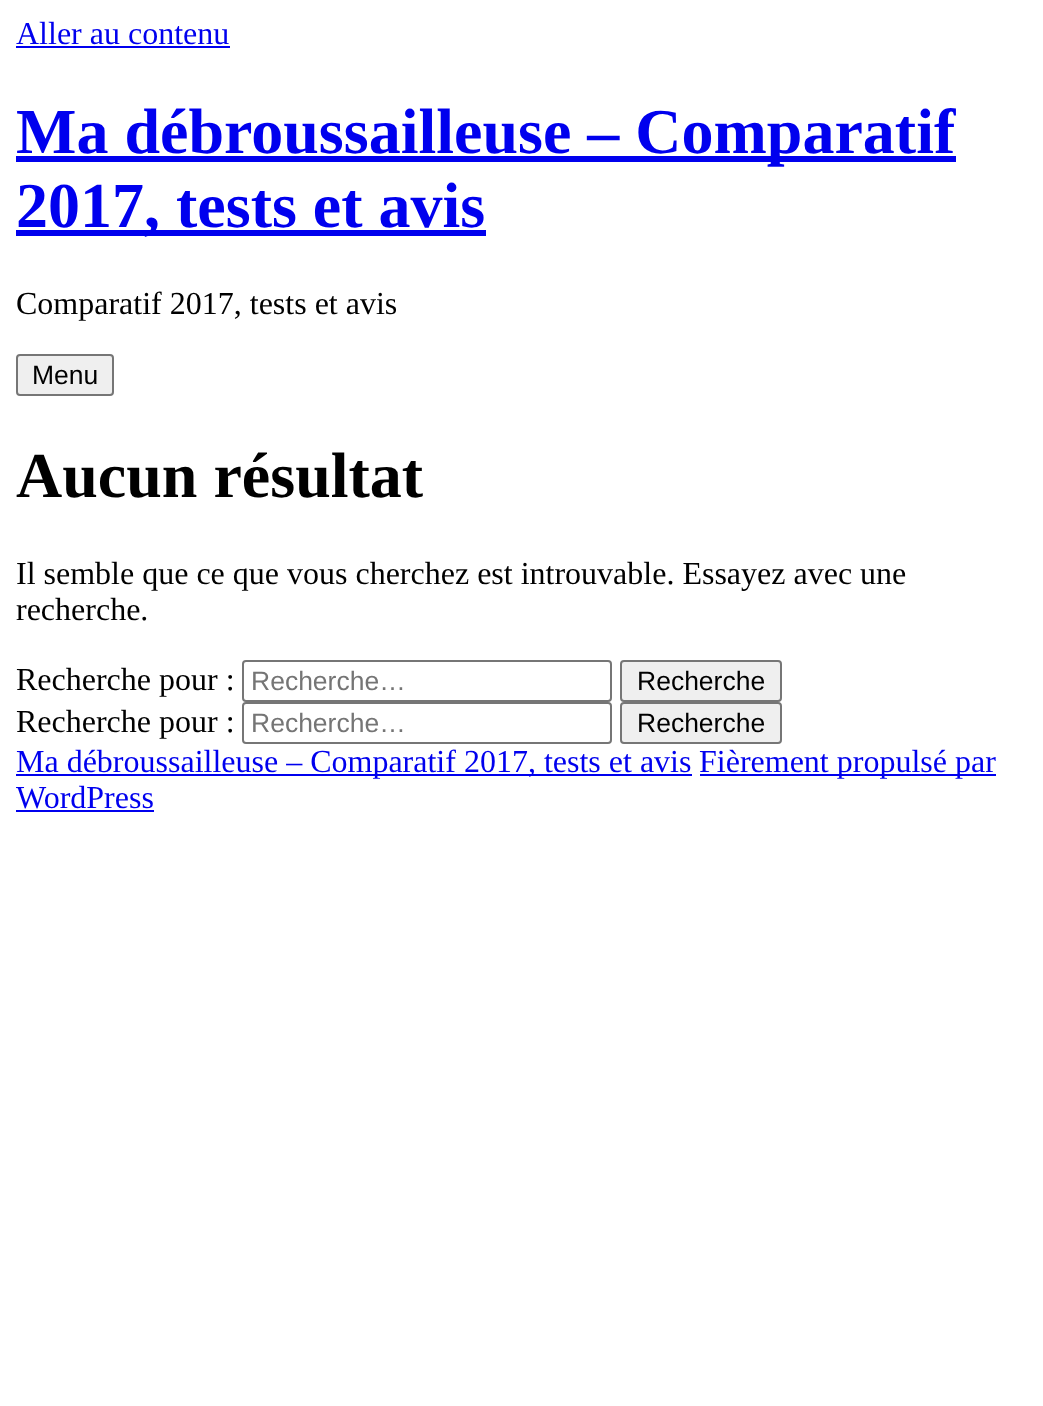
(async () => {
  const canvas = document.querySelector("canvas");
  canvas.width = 1043;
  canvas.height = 1406;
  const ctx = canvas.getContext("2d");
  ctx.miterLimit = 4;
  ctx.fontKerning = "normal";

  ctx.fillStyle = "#ffffff";
  ctx.fillRect(0, 0, 1043, 1406);
  for (const [x, y, w, h, color] of [
    [16, 46, 214, 2, "#0000ee"],
    [16, 156, 940, 6, "#0000ee"],
    [16, 230, 470, 6, "#0000ee"],
  ]) {
    ctx.fillStyle = color;
    ctx.fillRect(x, y, w, h);
  }
  ctx.fillStyle = "#efefef";
  ctx.beginPath();
  ctx.roundRect(17, 355, 96, 40, 3);
  ctx.fill();
  ctx.strokeStyle = "#767676";
  ctx.lineWidth = 2;
  ctx.stroke();
  ctx.beginPath();
  ctx.roundRect(243, 661, 368, 40, 3);
  ctx.stroke();
  ctx.beginPath();
  ctx.roundRect(621, 661, 160, 40, 3);
  ctx.fill();
  ctx.stroke();
  ctx.beginPath();
  ctx.roundRect(243, 703, 368, 40, 3);
  ctx.stroke();
  ctx.beginPath();
  ctx.roundRect(621, 703, 160, 40, 3);
  ctx.fill();
  ctx.stroke();
  for (const [x, y, w, h, color] of [
    [16, 774, 676, 2, "#0000ee"],
    [700, 774, 296, 2, "#0000ee"],
    [16, 810, 138, 2, "#0000ee"],
  ]) {
    ctx.fillStyle = color;
    ctx.fillRect(x, y, w, h);
  }
  ctx.font = "32px Liberation Serif";
  ctx.fillText("Aller au contenu", 16, 44);
  ctx.font = "bold 64px Liberation Serif";
  ctx.fillText("Ma débroussailleuse – Comparatif", 16, 153);
  ctx.fillText("2017, tests et avis", 16, 227);
  ctx.font = "32px Liberation Serif";
  ctx.fillStyle = "#000000";
  ctx.fillText("Comparatif 2017, tests et avis", 16, 314);
  ctx.font = "26.5px Liberation Sans";
  ctx.fillText("Menu", 32, 384);
  ctx.font = "bold 64px Liberation Serif";
  ctx.fillText("Aucun résultat", 16, 497);
  ctx.font = "32px Liberation Serif";
  for (const [text, x, y] of [
    ["Il semble que ce que vous cherchez est introuvable. Essayez avec une", 16, 584],
    ["recherche.", 16, 620],
    ["Recherche pour :", 16, 690],
  ]) {
    ctx.fillText(text, x, y);
  }
  ctx.font = "26.5px Liberation Sans";
  ctx.fillStyle = "#757575";
  ctx.fillText("Recherche…", 251, 690);
  ctx.fillStyle = "#000000";
  ctx.fillText("Recherche", 637, 690);
  ctx.font = "32px Liberation Serif";
  ctx.fillText("Recherche pour :", 16, 732);
  ctx.font = "26.5px Liberation Sans";
  ctx.fillStyle = "#757575";
  ctx.fillText("Recherche…", 251, 732);
  ctx.fillStyle = "#000000";
  ctx.fillText("Recherche", 637, 732);
  ctx.font = "32px Liberation Serif";
  ctx.fillStyle = "#0000ee";
  for (const [text, x, y] of [
    ["Ma débroussailleuse – Comparatif 2017, tests et avis", 16, 772],
    ["Fièrement propulsé par", 699, 772],
    ["WordPress", 16, 808],
  ]) {
    ctx.fillText(text, x, y);
  }
})();
